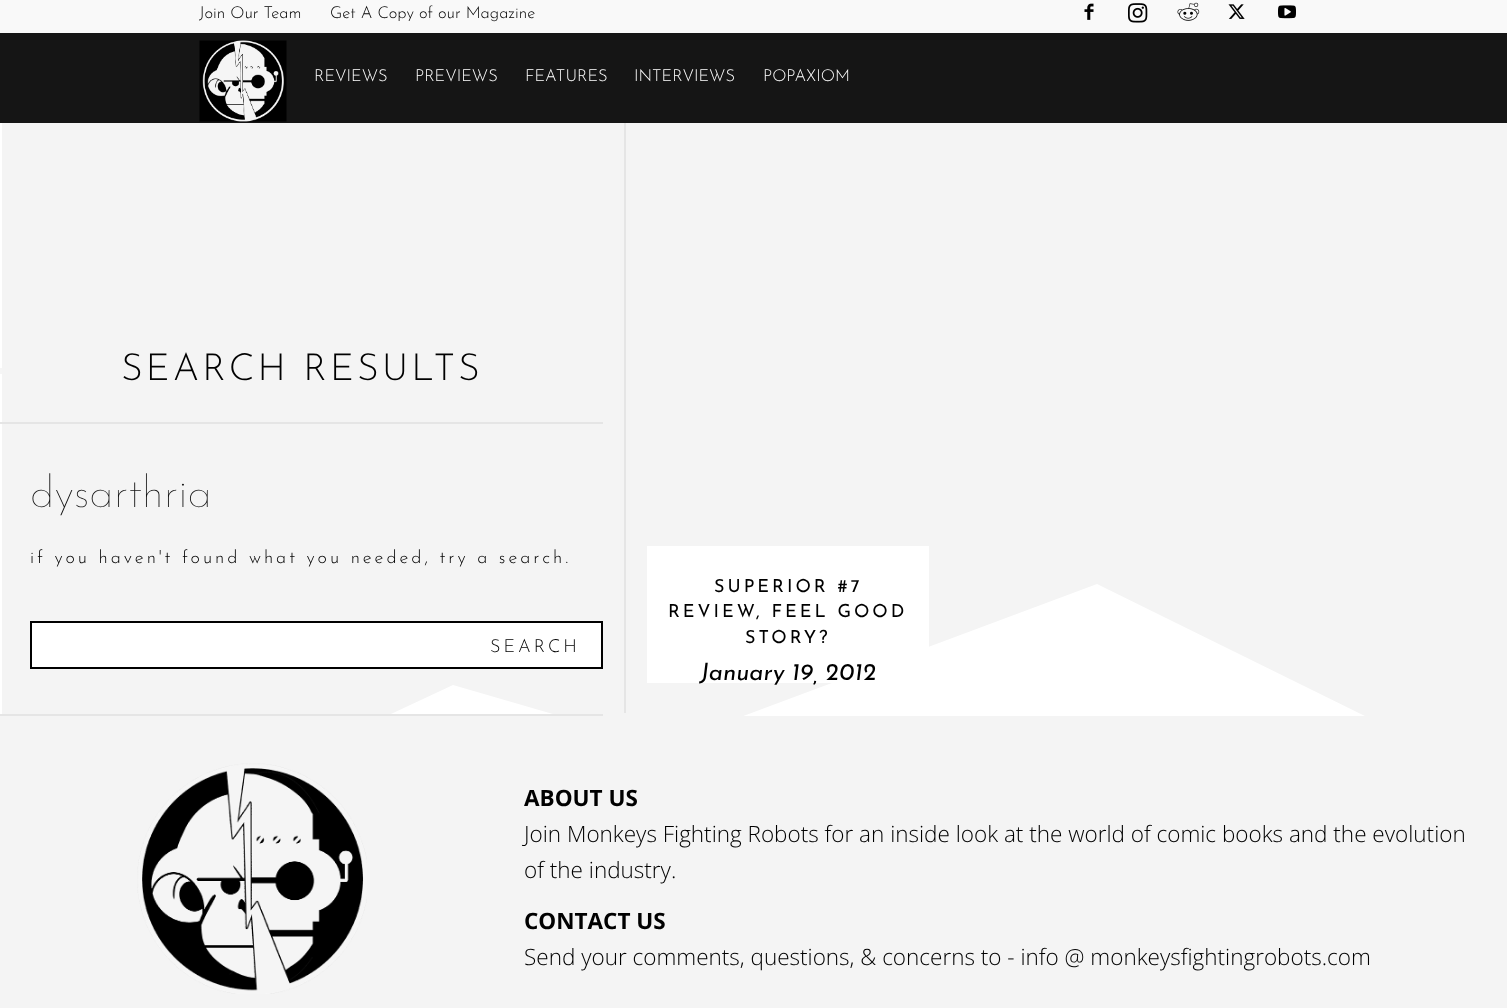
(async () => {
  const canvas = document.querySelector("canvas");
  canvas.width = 1507;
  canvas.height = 1008;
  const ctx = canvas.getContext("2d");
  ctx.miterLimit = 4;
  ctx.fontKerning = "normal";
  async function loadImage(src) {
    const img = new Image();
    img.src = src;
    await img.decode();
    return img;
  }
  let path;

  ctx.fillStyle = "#ffffff";
  ctx.fillRect(0, 0, 1507, 1008);
  ctx.fillStyle = "#f9f9f9";
  ctx.fillRect(0, 0, 1507, 33);
  ctx.drawImage(await loadImage("img/1.png"), 1084, 3, 10, 17);
  ctx.drawImage(await loadImage("img/2.png"), 1128, 3, 20, 20);
  ctx.drawImage(await loadImage("img/3.png"), 1177, 2, 23, 19);
  ctx.drawImage(await loadImage("img/4.png"), 1228, 4, 17, 15);
  ctx.drawImage(await loadImage("img/5.png"), 1278, 5, 18, 14);
  ctx.fillStyle = "#151515";
  ctx.fillRect(0, 33, 1507, 90);
  ctx.drawImage(await loadImage("img/6.png"), 199, 40, 88, 82);
  ctx.fillStyle = "#f4f4f4";
  ctx.fillRect(2, 123, 1505, 450);
  ctx.save();
  ctx.beginPath();
  ctx.rect(2, 573, 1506, 143);
  ctx.clip();
  path = new Path2D("M0 347V758L162 821L453 685L663 746L1097 584L1507 786V347Z");
  ctx.fill(path);
  ctx.restore();
  for (const [x, y, w, h, color] of [
    [0, 368, 2, 6, "#f5f5f5"],
    [0, 422, 603, 2, "#e5e5e5"],
    [0, 714, 603, 2, "#e5e5e5"],
  ]) {
    ctx.fillStyle = color;
    ctx.fillRect(x, y, w, h);
  }
  ctx.fillStyle = "#ffffff";
  ctx.beginPath();
  ctx.rect(31, 622, 571, 46);
  ctx.fill();
  ctx.strokeStyle = "#000000";
  ctx.lineWidth = 2;
  ctx.stroke();
  for (const [x, y, w, h, color] of [
    [624, 123, 2, 590, "#e5e5e5"],
    [647, 546, 282, 137, "#ffffff"],
    [0, 716, 1507, 292, "#f4f4f4"],
  ]) {
    ctx.fillStyle = color;
    ctx.fillRect(x, y, w, h);
  }
  ctx.drawImage(await loadImage("img/7.png"), 137, 763, 230, 231);
  ctx.font = "300 16.5px Josefin Sans";
  ctx.fillStyle = "#000000";
  ctx.fillText("Join Our Team", 199, 18);
  ctx.fillText("Get A Copy of our Magazine", 330, 18);
  ctx.fillStyle = "#ffffff";
  for (const [text, x, y] of [
    ["REVIEWS", 314, 81],
    ["PREVIEWS", 415, 81],
    ["FEATURES", 525, 81],
    ["INTERVIEWS", 634, 81],
    ["POPAXIOM", 763, 81],
  ]) {
    ctx.fillText(text, x, y);
  }
  ctx.letterSpacing = "3px";
  ctx.font = "300 37.5px Josefin Sans";
  ctx.fillStyle = "#000000";
  ctx.fillText("SEARCH RESULTS", 121, 380);
  ctx.letterSpacing = "0px";
  ctx.font = "100 45px Josefin Sans";
  ctx.fillStyle = "#111111";
  ctx.fillText("dysarthria", 30, 507);
  ctx.letterSpacing = "3px";
  ctx.font = "300 18px Josefin Sans";
  ctx.fillStyle = "#000000";
  ctx.fillText("if you haven't found what you needed, try a search.", 30, 563);
  ctx.fillText("SEARCH", 490, 652);
  ctx.font = "18px Josefin Sans";
  for (const [text, x, y] of [
    ["SUPERIOR #7", 714, 592],
    ["REVIEW, FEEL GOOD", 668, 617],
    ["STORY?", 745, 643],
  ]) {
    ctx.fillText(text, x, y);
  }
  ctx.letterSpacing = "0px";
  ctx.font = "italic 100 24px Josefin Sans";
  ctx.fillText("January 19, 2012", 700, 680);
  ctx.font = "bold 22.5px Open Sans";
  ctx.fillText("ABOUT US", 524, 806);
  ctx.font = "300 22.5px Open Sans";
  ctx.fillText("Join Monkeys Fighting Robots for an inside look at the world of comic books and the evolution", 524, 842);
  ctx.fillText("of the industry.", 524, 878);
  ctx.font = "bold 22.5px Open Sans";
  ctx.fillText("CONTACT US", 524, 929);
  ctx.font = "300 22.5px Open Sans";
  ctx.fillText("Send your comments, questions, & concerns to - info @ monkeysfightingrobots.com", 524, 965);
})();
